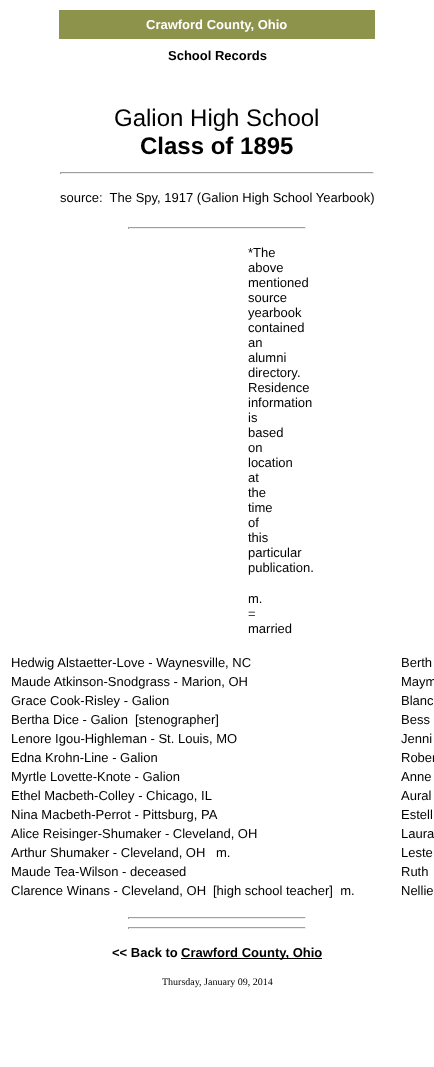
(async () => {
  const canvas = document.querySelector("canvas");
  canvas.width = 434;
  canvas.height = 1067;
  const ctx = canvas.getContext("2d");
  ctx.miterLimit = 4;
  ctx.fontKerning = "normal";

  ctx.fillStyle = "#ffffff";
  ctx.fillRect(0, 0, 434, 1067);
  for (const [x, y, w, h, color] of [
    [59, 10, 316, 29, "#8d934a"],
    [60, 172, 314, 1, "#9f9f9f"],
    [373, 172, 1, 2, "#eeeeee"],
    [60, 173, 314, 1, "#eeeeee"],
    [60, 172, 1, 2, "#9f9f9f"],
    [128, 227, 178, 1, "#9f9f9f"],
    [305, 227, 1, 2, "#eeeeee"],
    [128, 228, 178, 1, "#eeeeee"],
    [128, 227, 1, 2, "#9f9f9f"],
    [128, 917, 178, 1, "#9f9f9f"],
    [305, 917, 1, 2, "#eeeeee"],
    [128, 918, 178, 1, "#eeeeee"],
    [128, 917, 1, 2, "#9f9f9f"],
    [128, 927, 178, 1, "#9f9f9f"],
    [305, 927, 1, 2, "#eeeeee"],
    [128, 928, 178, 1, "#eeeeee"],
    [128, 927, 1, 2, "#9f9f9f"],
    [181, 958, 141, 1, "#000000"],
  ]) {
    ctx.fillStyle = color;
    ctx.fillRect(x, y, w, h);
  }
  ctx.font = "bold 13px Liberation Sans";
  ctx.fillStyle = "#ffffff";
  ctx.fillText("Crawford County, Ohio", 146, 29);
  ctx.fillStyle = "#000000";
  ctx.fillText("School Records", 168, 60);
  ctx.font = "24px Liberation Sans";
  ctx.fillText("Galion High School", 114, 126);
  ctx.font = "bold 24px Liberation Sans";
  ctx.fillText("Class of 1895", 140, 154);
  ctx.font = "13px Liberation Sans";
  for (const [text, x, y] of [
    ["source:  The Spy, 1917 (Galion High School Yearbook)", 60, 202],
    ["*The", 248, 257],
    ["above", 248, 272],
    ["mentioned", 248, 287],
    ["source", 248, 302],
    ["yearbook", 248, 317],
    ["contained", 248, 332],
    ["an", 248, 347],
    ["alumni", 248, 362],
    ["directory.", 248, 377],
    ["Residence", 248, 392],
    ["information", 248, 407],
    ["is", 248, 422],
    ["based", 248, 437],
    ["on", 248, 452],
    ["location", 248, 467],
    ["at", 248, 482],
    ["the", 248, 497],
    ["time", 248, 512],
    ["of", 248, 527],
    ["this", 248, 542],
    ["particular", 248, 557],
    ["publication.", 248, 572],
    ["m.", 248, 603],
    ["=", 248, 618],
    ["married", 248, 633],
    ["Hedwig Alstaetter-Love - Waynesville, NC", 11, 667],
    ["Berth", 401, 667],
    ["Maude Atkinson-Snodgrass - Marion, OH", 11, 686],
    ["Maym", 401, 686],
    ["Grace Cook-Risley - Galion", 11, 705],
    ["Blanc", 401, 705],
    ["Bertha Dice - Galion", 11, 724],
    ["[stenographer]", 135, 724],
    ["Bess", 401, 724],
    ["Lenore Igou-Highleman - St. Louis, MO", 11, 743],
    ["Jenni", 401, 743],
    ["Edna Krohn-Line - Galion", 11, 762],
    ["Rober", 401, 762],
    ["Myrtle Lovette-Knote - Galion", 11, 781],
    ["Anne", 401, 781],
    ["Ethel Macbeth-Colley - Chicago, IL", 11, 800],
    ["Aural", 401, 800],
    ["Nina Macbeth-Perrot - Pittsburg, PA", 11, 819],
    ["Estell", 401, 819],
    ["Alice Reisinger-Shumaker - Cleveland, OH", 11, 838],
    ["Laura", 401, 838],
    ["Arthur Shumaker - Cleveland, OH", 11, 857],
    ["m.", 216, 857],
    ["Leste", 401, 857],
    ["Maude Tea-Wilson - deceased", 11, 876],
    ["Ruth", 401, 876],
    ["Clarence Winans - Cleveland, OH", 11, 895],
    ["[high school teacher]  m.", 213, 895],
    ["Nellie", 401, 895],
  ]) {
    ctx.fillText(text, x, y);
  }
  ctx.font = "bold 13px Liberation Sans";
  ctx.fillText("<< Back to", 112, 957);
  ctx.fillText("Crawford County, Ohio", 181, 957);
  ctx.font = "10px Liberation Serif";
  ctx.fillText("Thursday, January 09, 2014", 162, 985);
})();
